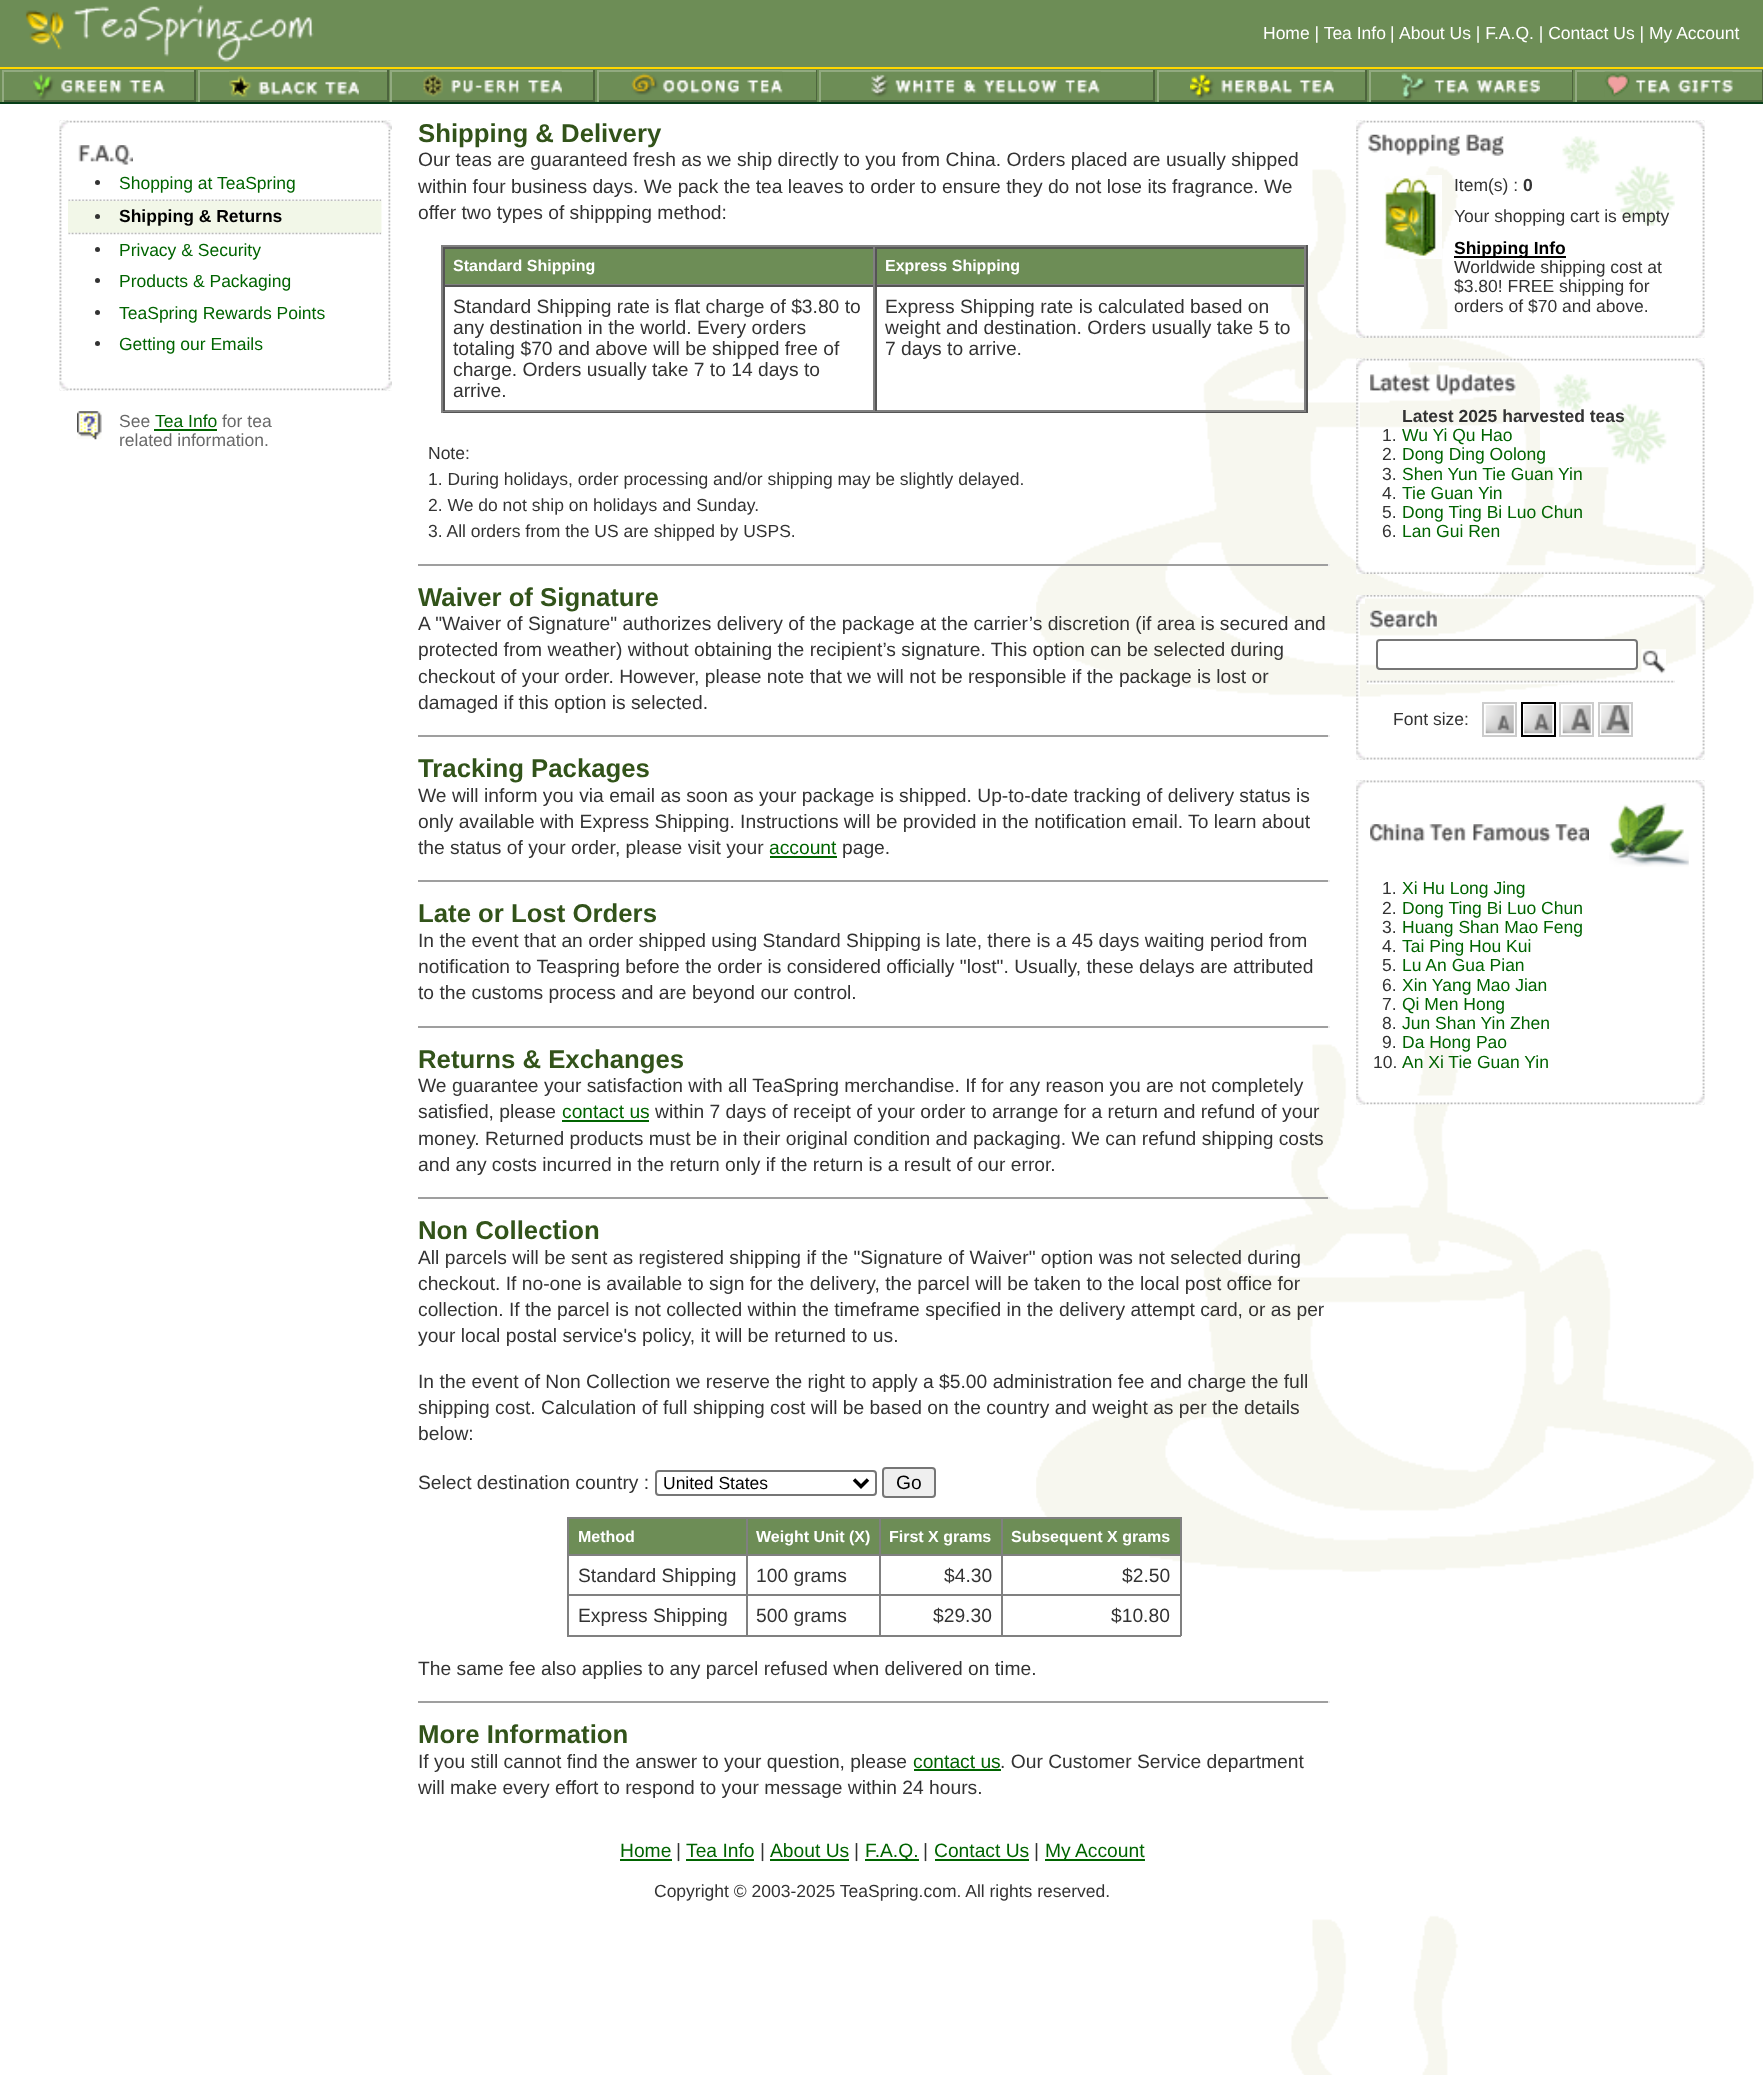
(async () => {
  const canvas = document.querySelector("canvas");
  canvas.width = 1763;
  canvas.height = 2075;
  const ctx = canvas.getContext("2d");
  ctx.miterLimit = 4;
  ctx.fontKerning = "normal";
  async function loadImage(src) {
    const img = new Image();
    img.src = src;
    await img.decode();
    return img;
  }
  let path;

  ctx.fillStyle = "#ffffff";
  ctx.fillRect(0, 0, 1763, 2075);
  ctx.drawImage(await loadImage("img/1.png"), 1036, 166, 718, 1909);
  ctx.fillStyle = "#6d8d56";
  ctx.fillRect(0, 0, 1763, 102);
  ctx.drawImage(await loadImage("img/2.png"), 25, 5, 289, 57);
  for (const [x, y, w, h, color] of [
    [0, 67, 1763, 2, "#ffd700"],
    [0, 102, 1763, 2, "#083f19"],
    [2, 70, 194, 2, "#92aa80"],
    [194, 70, 2, 32, "#4d643d"],
    [2, 100, 194, 2, "#4d643d"],
    [2, 70, 2, 32, "#92aa80"],
  ]) {
    ctx.fillStyle = color;
    ctx.fillRect(x, y, w, h);
  }
  ctx.drawImage(await loadImage("img/3.png"), 33, 71, 132, 29);
  for (const [x, y, w, h, color] of [
    [198, 70, 191, 2, "#92aa80"],
    [387, 70, 2, 32, "#4d643d"],
    [198, 100, 191, 2, "#4d643d"],
    [198, 70, 2, 32, "#92aa80"],
  ]) {
    ctx.fillStyle = color;
    ctx.fillRect(x, y, w, h);
  }
  ctx.drawImage(await loadImage("img/4.png"), 229, 71, 130, 27);
  for (const [x, y, w, h, color] of [
    [390, 70, 205, 2, "#92aa80"],
    [593, 70, 2, 32, "#4d643d"],
    [390, 100, 205, 2, "#4d643d"],
    [390, 70, 2, 32, "#92aa80"],
  ]) {
    ctx.fillStyle = color;
    ctx.fillRect(x, y, w, h);
  }
  ctx.drawImage(await loadImage("img/5.png"), 423, 71, 139, 26);
  for (const [x, y, w, h, color] of [
    [597, 70, 220, 2, "#92aa80"],
    [816, 70, 1, 32, "#4d643d"],
    [597, 100, 220, 2, "#4d643d"],
    [597, 70, 2, 32, "#92aa80"],
  ]) {
    ctx.fillStyle = color;
    ctx.fillRect(x, y, w, h);
  }
  ctx.drawImage(await loadImage("img/6.png"), 631, 71, 152, 24);
  for (const [x, y, w, h, color] of [
    [819, 70, 336, 2, "#92aa80"],
    [1153, 70, 2, 32, "#4d643d"],
    [819, 100, 336, 2, "#4d643d"],
    [819, 70, 2, 32, "#92aa80"],
  ]) {
    ctx.fillStyle = color;
    ctx.fillRect(x, y, w, h);
  }
  ctx.drawImage(await loadImage("img/7.png"), 871, 71, 230, 26);
  for (const [x, y, w, h, color] of [
    [1157, 70, 210, 2, "#92aa80"],
    [1365, 70, 2, 32, "#4d643d"],
    [1157, 100, 210, 2, "#4d643d"],
    [1157, 70, 2, 32, "#92aa80"],
  ]) {
    ctx.fillStyle = color;
    ctx.fillRect(x, y, w, h);
  }
  ctx.drawImage(await loadImage("img/8.png"), 1190, 71, 144, 28);
  for (const [x, y, w, h, color] of [
    [1369, 70, 204, 2, "#92aa80"],
    [1572, 70, 1, 32, "#4d643d"],
    [1369, 100, 204, 2, "#4d643d"],
    [1369, 70, 2, 32, "#92aa80"],
  ]) {
    ctx.fillStyle = color;
    ctx.fillRect(x, y, w, h);
  }
  ctx.drawImage(await loadImage("img/9.png"), 1401, 71, 139, 29);
  for (const [x, y, w, h, color] of [
    [1575, 70, 188, 2, "#92aa80"],
    [1762, 70, 1, 32, "#4d643d"],
    [1575, 100, 188, 2, "#4d643d"],
    [1575, 70, 2, 32, "#92aa80"],
  ]) {
    ctx.fillStyle = color;
    ctx.fillRect(x, y, w, h);
  }
  ctx.drawImage(await loadImage("img/10.png"), 1604, 71, 129, 26);
  ctx.drawImage(await loadImage("img/11.png"), 59, 120, 323, 3);
  ctx.drawImage(await loadImage("img/15.png"), 59, 129, 3, 253);
  ctx.drawImage(await loadImage("img/12.png"), 59, 120, 9, 10);
  ctx.drawImage(await loadImage("img/13.png"), 381, 120, 11, 3);
  ctx.drawImage(await loadImage("img/17.png"), 68, 199, 314, 2);
  ctx.fillStyle = "#f2f7e8";
  ctx.fillRect(68, 201, 314, 32);
  ctx.drawImage(await loadImage("img/18.png"), 68, 232, 314, 3);
  ctx.drawImage(await loadImage("img/19.png"), 381, 129, 10, 253);
  ctx.drawImage(await loadImage("img/14.png"), 383, 120, 9, 10);
  ctx.drawImage(await loadImage("img/16.png"), 78, 145, 55, 20);
  ctx.fillStyle = "#333333";
  ctx.beginPath();
  ctx.arc(97.5, 182.5, 2.5, 0, Math.PI * 2);
  ctx.fill();
  ctx.beginPath();
  ctx.arc(97.5, 216.5, 2.5, 0, Math.PI * 2);
  ctx.fill();
  ctx.beginPath();
  ctx.arc(97.5, 249.5, 2.5, 0, Math.PI * 2);
  ctx.fill();
  ctx.beginPath();
  ctx.arc(97.5, 280.5, 2.5, 0, Math.PI * 2);
  ctx.fill();
  ctx.beginPath();
  ctx.arc(97.5, 312.5, 2.5, 0, Math.PI * 2);
  ctx.fill();
  ctx.beginPath();
  ctx.arc(97.5, 343.5, 2.5, 0, Math.PI * 2);
  ctx.fill();
  ctx.drawImage(await loadImage("img/20.png"), 59, 381, 323, 10);
  ctx.drawImage(await loadImage("img/21.png"), 59, 381, 9, 10);
  ctx.drawImage(await loadImage("img/22.png"), 381, 381, 11, 10);
  ctx.drawImage(await loadImage("img/23.png"), 383, 381, 9, 10);
  ctx.drawImage(await loadImage("img/24.png"), 77, 411, 25, 29);
  for (const [x, y, w, h, color] of [
    [154, 429, 63, 2, "#006400"],
    [441, 245, 866, 2, "#808080"],
    [1306, 245, 2, 168, "#555555"],
    [441, 411, 866, 2, "#555555"],
    [441, 245, 2, 168, "#808080"],
    [445, 249, 428, 35, "#6d8d56"],
    [443, 247, 863, 2, "#555555"],
    [873, 247, 2, 38, "#808080"],
    [443, 284, 432, 1, "#808080"],
    [443, 247, 2, 38, "#555555"],
    [877, 249, 427, 35, "#6d8d56"],
    [1304, 247, 2, 38, "#808080"],
    [875, 284, 431, 1, "#808080"],
    [875, 247, 2, 38, "#555555"],
    [443, 285, 863, 2, "#555555"],
    [873, 285, 2, 126, "#808080"],
    [443, 410, 432, 2, "#808080"],
    [443, 285, 2, 126, "#555555"],
    [1304, 285, 2, 126, "#808080"],
    [875, 410, 431, 2, "#808080"],
    [875, 285, 2, 126, "#555555"],
    [418, 564, 912, 2, "#9f9f9f"],
    [1328, 564, 2, 2, "#eeeeee"],
    [418, 735, 912, 2, "#9f9f9f"],
    [1328, 735, 2, 2, "#eeeeee"],
    [770, 856, 67, 2, "#006400"],
    [418, 880, 912, 2, "#9f9f9f"],
    [1328, 880, 2, 2, "#eeeeee"],
    [418, 1026, 912, 2, "#9f9f9f"],
    [1328, 1026, 2, 2, "#eeeeee"],
    [562, 1120, 87, 2, "#006400"],
    [418, 1197, 912, 2, "#9f9f9f"],
    [1328, 1197, 2, 2, "#eeeeee"],
  ]) {
    ctx.fillStyle = color;
    ctx.fillRect(x, y, w, h);
  }
  ctx.beginPath();
  ctx.roundRect(656, 1471, 220, 24, 3);
  ctx.strokeStyle = "#767676";
  ctx.lineWidth = 2;
  ctx.stroke();
  path = new Path2D("M854 1479.5L861 1486.5L868 1479.5");
  ctx.strokeStyle = "#000000";
  ctx.lineWidth = 3.5;
  ctx.stroke(path);
  ctx.fillStyle = "#efefef";
  ctx.beginPath();
  ctx.roundRect(883, 1468, 52, 29, 3);
  ctx.fill();
  ctx.strokeStyle = "#767676";
  ctx.lineWidth = 2;
  ctx.stroke();
  for (const [x, y, w, h, color] of [
    [567, 1517, 614, 2, "#808080"],
    [1180, 1517, 2, 119, "#808080"],
    [567, 1635, 614, 2, "#808080"],
    [567, 1517, 2, 119, "#808080"],
    [569, 1519, 177, 35, "#6d8d56"],
    [748, 1519, 131, 35, "#6d8d56"],
    [1001, 1554, 180, 2, "#808080"],
    [1001, 1594, 180, 2, "#808080"],
    [1001, 1594, 2, 42, "#808080"],
    [879, 1594, 124, 2, "#808080"],
    [1001, 1554, 2, 42, "#808080"],
    [879, 1554, 124, 2, "#808080"],
    [879, 1594, 2, 42, "#808080"],
    [746, 1594, 134, 2, "#808080"],
    [879, 1554, 2, 42, "#808080"],
    [746, 1554, 134, 2, "#808080"],
    [746, 1594, 2, 42, "#808080"],
    [567, 1594, 180, 2, "#808080"],
    [746, 1554, 2, 42, "#808080"],
    [567, 1554, 180, 2, "#808080"],
    [746, 1517, 2, 39, "#808080"],
    [881, 1519, 120, 35, "#6d8d56"],
    [879, 1517, 2, 39, "#808080"],
    [1003, 1519, 177, 35, "#6d8d56"],
    [1001, 1517, 2, 39, "#808080"],
    [418, 1701, 912, 2, "#9f9f9f"],
    [1328, 1701, 2, 2, "#eeeeee"],
    [914, 1769, 87, 2, "#006400"],
  ]) {
    ctx.fillStyle = color;
    ctx.fillRect(x, y, w, h);
  }
  ctx.drawImage(await loadImage("img/25.png"), 1356, 120, 340, 3);
  ctx.drawImage(await loadImage("img/29.png"), 1356, 129, 3, 200);
  ctx.drawImage(await loadImage("img/26.png"), 1356, 120, 9, 10);
  ctx.drawImage(await loadImage("img/27.png"), 1696, 120, 9, 3);
  ctx.drawImage(await loadImage("img/33.png"), 1702, 129, 3, 200);
  ctx.drawImage(await loadImage("img/28.png"), 1695, 120, 10, 10);
  ctx.drawImage(await loadImage("img/30.png"), 1562, 136, 113, 90);
  ctx.drawImage(await loadImage("img/31.png"), 1368, 134, 136, 22);
  ctx.drawImage(await loadImage("img/32.png"), 1384, 175, 58, 84);
  ctx.fillStyle = "#000000";
  ctx.fillRect(1454, 256, 112, 2);
  ctx.drawImage(await loadImage("img/34.png"), 1356, 329, 340, 9);
  ctx.drawImage(await loadImage("img/35.png"), 1356, 329, 9, 9);
  ctx.drawImage(await loadImage("img/36.png"), 1696, 335, 9, 3);
  ctx.drawImage(await loadImage("img/37.png"), 1695, 329, 10, 9);
  ctx.drawImage(await loadImage("img/38.png"), 1356, 358, 340, 5);
  ctx.drawImage(await loadImage("img/40.png"), 1356, 367, 4, 198);
  ctx.drawImage(await loadImage("img/39.png"), 1356, 358, 9, 10);
  ctx.drawImage(await loadImage("img/27.png"), 1696, 358, 9, 3);
  ctx.drawImage(await loadImage("img/43.png"), 1695, 367, 10, 199);
  ctx.drawImage(await loadImage("img/28.png"), 1695, 358, 10, 10);
  ctx.drawImage(await loadImage("img/41.png"), 1540, 374, 127, 94);
  ctx.drawImage(await loadImage("img/42.png"), 1370, 374, 146, 22);
  ctx.drawImage(await loadImage("img/44.png"), 1356, 565, 340, 9);
  ctx.drawImage(await loadImage("img/45.png"), 1356, 565, 9, 9);
  ctx.drawImage(await loadImage("img/46.png"), 1696, 565, 9, 9);
  ctx.drawImage(await loadImage("img/47.png"), 1695, 565, 10, 9);
  ctx.drawImage(await loadImage("img/48.png"), 1356, 595, 340, 4);
  ctx.drawImage(await loadImage("img/49.png"), 1356, 595, 9, 9);
  ctx.drawImage(await loadImage("img/50.png"), 1704, 595, 1, 3);
  ctx.drawImage(await loadImage("img/60.png"), 1695, 603, 10, 148);
  ctx.drawImage(await loadImage("img/51.png"), 1695, 595, 10, 9);
  ctx.drawImage(await loadImage("img/52.png"), 1356, 604, 4, 147);
  ctx.drawImage(await loadImage("img/53.png"), 1370, 610, 67, 19);
  ctx.fillStyle = "#ffffff";
  ctx.beginPath();
  ctx.roundRect(1377, 640, 260, 29, 3);
  ctx.fill();
  ctx.stroke();
  ctx.drawImage(await loadImage("img/54.png"), 1641, 649, 25, 25);
  ctx.drawImage(await loadImage("img/55.png"), 1366, 680, 309, 5);
  ctx.strokeStyle = "#cccccc";
  ctx.strokeRect(1483, 703, 33, 33);
  ctx.drawImage(await loadImage("img/56.png"), 1485, 705, 29, 29);
  ctx.strokeStyle = "#000000";
  ctx.strokeRect(1522, 703, 33, 33);
  ctx.drawImage(await loadImage("img/57.png"), 1524, 705, 29, 29);
  ctx.strokeStyle = "#cccccc";
  ctx.strokeRect(1560, 703, 33, 33);
  ctx.drawImage(await loadImage("img/58.png"), 1562, 705, 29, 29);
  ctx.strokeRect(1599, 703, 33, 33);
  ctx.drawImage(await loadImage("img/59.png"), 1601, 705, 29, 29);
  ctx.drawImage(await loadImage("img/61.png"), 1356, 757, 340, 3);
  ctx.drawImage(await loadImage("img/62.png"), 1356, 750, 9, 10);
  ctx.drawImage(await loadImage("img/63.png"), 1696, 750, 9, 10);
  ctx.drawImage(await loadImage("img/64.png"), 1695, 750, 10, 10);
  ctx.drawImage(await loadImage("img/65.png"), 1356, 780, 340, 3);
  ctx.drawImage(await loadImage("img/66.png"), 1356, 780, 9, 9);
  ctx.drawImage(await loadImage("img/67.png"), 1696, 780, 9, 3);
  ctx.drawImage(await loadImage("img/68.png"), 1695, 780, 10, 9);
  ctx.drawImage(await loadImage("img/69.png"), 1356, 789, 3, 307);
  ctx.drawImage(await loadImage("img/70.png"), 1370, 824, 219, 18);
  ctx.drawImage(await loadImage("img/71.png"), 1609, 803, 80, 64);
  ctx.drawImage(await loadImage("img/72.png"), 1702, 789, 3, 307);
  ctx.drawImage(await loadImage("img/73.png"), 1356, 1095, 340, 10);
  ctx.drawImage(await loadImage("img/74.png"), 1356, 1095, 9, 10);
  ctx.drawImage(await loadImage("img/75.png"), 1696, 1095, 9, 10);
  ctx.drawImage(await loadImage("img/76.png"), 1695, 1095, 10, 10);
  for (const [x, y, w, h, color] of [
    [620, 1859, 52, 2, "#006400"],
    [686, 1859, 68, 2, "#006400"],
    [770, 1859, 79, 2, "#006400"],
    [865, 1859, 54, 2, "#006400"],
    [935, 1859, 94, 2, "#006400"],
    [1045, 1859, 100, 2, "#006400"],
  ]) {
    ctx.fillStyle = color;
    ctx.fillRect(x, y, w, h);
  }
  ctx.font = "17.5px Liberation Sans";
  ctx.fillStyle = "#ffffff";
  for (const [text, x, y] of [
    ["Home | Tea Info", 1263, 39],
    ["|", 1390, 39],
    ["About Us | F.A.Q. | Contact Us | My Account", 1399, 39],
  ]) {
    ctx.fillText(text, x, y);
  }
  ctx.fillStyle = "#006400";
  ctx.fillText("Shopping at TeaSpring", 119, 189);
  ctx.font = "bold 17.5px Liberation Sans";
  ctx.fillStyle = "#000000";
  ctx.fillText("Shipping & Returns", 119, 222);
  ctx.font = "17.5px Liberation Sans";
  ctx.fillStyle = "#006400";
  for (const [text, x, y] of [
    ["Privacy & Security", 119, 256],
    ["Products & Packaging", 119, 287],
    ["TeaSpring Rewards Points", 119, 319],
    ["Getting our Emails", 119, 350],
  ]) {
    ctx.fillText(text, x, y);
  }
  ctx.fillStyle = "#696969";
  ctx.fillText("See", 119, 427);
  ctx.fillStyle = "#006400";
  ctx.fillText("Tea Info", 155, 427);
  ctx.fillStyle = "#696969";
  ctx.fillText("for tea", 222, 427);
  ctx.fillText("related information.", 119, 446);
  ctx.font = "bold 25.75px Liberation Sans";
  ctx.fillStyle = "#32531a";
  ctx.fillText("Shipping & Delivery", 418, 142);
  ctx.font = "19.25px Liberation Sans";
  ctx.fillStyle = "#333333";
  for (const [text, x, y] of [
    ["Our teas are guaranteed fresh as we ship directly to you from China. Orders placed are usually shipped", 418, 166],
    ["within four business days. We pack the tea leaves to order to ensure they do not lose its fragrance. We", 418, 193],
    ["offer two types of shippping method:", 418, 219],
  ]) {
    ctx.fillText(text, x, y);
  }
  ctx.font = "bold 16px Liberation Sans";
  ctx.fillStyle = "#ffffff";
  ctx.fillText("Standard Shipping", 453, 271);
  ctx.fillText("Express Shipping", 885, 271);
  ctx.font = "19.25px Liberation Sans";
  ctx.fillStyle = "#333333";
  for (const [text, x, y] of [
    ["Standard Shipping rate is flat charge of $3.80 to", 453, 313],
    ["any destination in the world. Every orders", 453, 334],
    ["totaling $70 and above will be shipped free of", 453, 355],
    ["charge. Orders usually take 7 to 14 days to", 453, 376],
    ["arrive.", 453, 397],
    ["Express Shipping rate is calculated based on", 885, 313],
    ["weight and destination. Orders usually take 5 to", 885, 334],
    ["7 days to arrive.", 885, 355],
  ]) {
    ctx.fillText(text, x, y);
  }
  ctx.font = "17.5px Liberation Sans";
  for (const [text, x, y] of [
    ["Note:", 428, 459],
    ["1. During holidays, order processing and/or shipping may be slightly delayed.", 428, 485],
    ["2. We do not ship on holidays and Sunday.", 428, 511],
    ["3. All orders from the US are shipped by USPS.", 428, 537],
  ]) {
    ctx.fillText(text, x, y);
  }
  ctx.font = "bold 25.75px Liberation Sans";
  ctx.fillStyle = "#32531a";
  ctx.fillText("Waiver of Signature", 418, 606);
  ctx.font = "19.25px Liberation Sans";
  ctx.fillStyle = "#333333";
  for (const [text, x, y] of [
    ["A \"Waiver of Signature\" authorizes delivery of the package at the carrier’s discretion (if area is secured and", 418, 630],
    ["protected from weather) without obtaining the recipient’s signature. This option can be selected during", 418, 656],
    ["checkout of your order. However, please note that we will not be responsible if the package is lost or", 418, 683],
    ["damaged if this option is selected.", 418, 709],
  ]) {
    ctx.fillText(text, x, y);
  }
  ctx.font = "bold 25.75px Liberation Sans";
  ctx.fillStyle = "#32531a";
  ctx.fillText("Tracking Packages", 418, 777);
  ctx.font = "19.25px Liberation Sans";
  ctx.fillStyle = "#333333";
  for (const [text, x, y] of [
    ["We will inform you via email as soon as your package is shipped. Up-to-date tracking of delivery status is", 418, 802],
    ["only available with Express Shipping. Instructions will be provided in the notification email.", 418, 828],
    ["To learn about", 1188, 828],
    ["the status of your order, please visit your", 418, 854],
  ]) {
    ctx.fillText(text, x, y);
  }
  ctx.fillStyle = "#006400";
  ctx.fillText("account", 769, 854);
  ctx.fillStyle = "#333333";
  ctx.fillText("page.", 842, 854);
  ctx.font = "bold 25.75px Liberation Sans";
  ctx.fillStyle = "#32531a";
  ctx.fillText("Late or Lost Orders", 418, 922);
  ctx.font = "19.25px Liberation Sans";
  ctx.fillStyle = "#333333";
  for (const [text, x, y] of [
    ["In the event that an order shipped using Standard Shipping is late, there is a 45 days waiting period from", 418, 947],
    ["notification to Teaspring before the order is considered officially \"lost\". Usually, these delays are attributed", 418, 973],
    ["to the customs process and are beyond our control.", 418, 999],
  ]) {
    ctx.fillText(text, x, y);
  }
  ctx.font = "bold 25.75px Liberation Sans";
  ctx.fillStyle = "#32531a";
  ctx.fillText("Returns & Exchanges", 418, 1068);
  ctx.font = "19.25px Liberation Sans";
  ctx.fillStyle = "#333333";
  ctx.fillText("We guarantee your satisfaction with all TeaSpring merchandise. If for any reason you are not completely", 418, 1092);
  ctx.fillText("satisfied, please", 418, 1118);
  ctx.fillStyle = "#006400";
  ctx.fillText("contact us", 562, 1118);
  ctx.fillStyle = "#333333";
  for (const [text, x, y] of [
    ["within 7 days of receipt of your order to arrange for a return and refund of your", 655, 1118],
    ["money. Returned products must be in their original condition and packaging. We can refund shipping costs", 418, 1145],
    ["and any costs incurred in the return only if the return is a result of our error.", 418, 1171],
  ]) {
    ctx.fillText(text, x, y);
  }
  ctx.font = "bold 25.75px Liberation Sans";
  ctx.fillStyle = "#32531a";
  ctx.fillText("Non Collection", 418, 1239);
  ctx.font = "19.25px Liberation Sans";
  ctx.fillStyle = "#333333";
  for (const [text, x, y] of [
    ["All parcels will be sent as registered shipping if the \"Signature of Waiver\" option was not selected during", 418, 1264],
    ["checkout. If no-one is available to sign for the delivery, the parcel will be taken to the local post office for", 418, 1290],
    ["collection. If the parcel is not collected within the timeframe specified in the delivery attempt card, or as per", 418, 1316],
    ["your local postal service's policy, it will be returned to us.", 418, 1342],
    ["In the event of Non Collection we reserve the right to apply a $5.00 administration fee and charge the full", 418, 1388],
    ["shipping cost. Calculation of full shipping cost will be based on the country and weight as per the details", 418, 1414],
    ["below:", 418, 1440],
    ["Select destination country :", 418, 1489],
  ]) {
    ctx.fillText(text, x, y);
  }
  ctx.font = "17.5px Liberation Sans";
  ctx.fillStyle = "#000000";
  ctx.fillText("United States", 663, 1489);
  ctx.font = "19.25px Liberation Sans";
  ctx.fillText("Go", 896, 1489);
  ctx.font = "bold 16px Liberation Sans";
  ctx.fillStyle = "#ffffff";
  for (const [text, x, y] of [
    ["Method", 578, 1542],
    ["Weight Unit (X)", 756, 1542],
    ["First X grams", 889, 1542],
    ["Subsequent X grams", 1011, 1542],
  ]) {
    ctx.fillText(text, x, y);
  }
  ctx.font = "19.25px Liberation Sans";
  ctx.fillStyle = "#333333";
  for (const [text, x, y] of [
    ["Standard Shipping", 578, 1582],
    ["100 grams", 756, 1582],
    ["$4.30", 944, 1582],
    ["$2.50", 1122, 1582],
    ["Express Shipping", 578, 1622],
    ["500 grams", 756, 1622],
    ["$29.30", 933, 1622],
    ["$10.80", 1111, 1622],
    ["The same fee also applies to any parcel refused when delivered on time.", 418, 1675],
  ]) {
    ctx.fillText(text, x, y);
  }
  ctx.font = "bold 25.75px Liberation Sans";
  ctx.fillStyle = "#32531a";
  ctx.fillText("More Information", 418, 1743);
  ctx.font = "19.25px Liberation Sans";
  ctx.fillStyle = "#333333";
  ctx.fillText("If you still cannot find the answer to your question, please", 418, 1768);
  ctx.fillStyle = "#006400";
  ctx.fillText("contact us", 913, 1768);
  ctx.fillStyle = "#333333";
  ctx.fillText(". Our Customer Service department", 1000, 1768);
  ctx.fillText("will make every effort to respond to your message within 24 hours.", 418, 1794);
  ctx.font = "17.5px Liberation Sans";
  ctx.fillText("Item(s) :", 1454, 191);
  ctx.font = "bold 17.5px Liberation Sans";
  ctx.fillText("0", 1523, 191);
  ctx.font = "17.5px Liberation Sans";
  ctx.fillText("Your shopping cart is empty", 1454, 222);
  ctx.font = "bold 17.5px Liberation Sans";
  ctx.fillStyle = "#000000";
  ctx.fillText("Shipping Info", 1454, 254);
  ctx.font = "17.5px Liberation Sans";
  ctx.fillStyle = "#333333";
  for (const [text, x, y] of [
    ["Worldwide shipping cost at", 1454, 273],
    ["$3.80! FREE shipping for", 1454, 292],
    ["orders of $70 and above.", 1454, 312],
  ]) {
    ctx.fillText(text, x, y);
  }
  ctx.font = "bold 17.5px Liberation Sans";
  ctx.fillText("Latest 2025 harvested teas", 1402, 422);
  ctx.font = "17.5px Liberation Sans";
  ctx.fillText("1.", 1382, 441);
  ctx.fillStyle = "#006400";
  ctx.fillText("Wu Yi Qu Hao", 1402, 441);
  ctx.fillStyle = "#333333";
  ctx.fillText("2.", 1382, 460);
  ctx.fillStyle = "#006400";
  ctx.fillText("Dong Ding Oolong", 1402, 460);
  ctx.fillStyle = "#333333";
  ctx.fillText("3.", 1382, 480);
  ctx.fillStyle = "#006400";
  ctx.fillText("Shen Yun Tie Guan Yin", 1402, 480);
  ctx.fillStyle = "#333333";
  ctx.fillText("4.", 1382, 499);
  ctx.fillStyle = "#006400";
  ctx.fillText("Tie Guan Yin", 1402, 499);
  ctx.fillStyle = "#333333";
  ctx.fillText("5.", 1382, 518);
  ctx.fillStyle = "#006400";
  ctx.fillText("Dong Ting Bi Luo Chun", 1402, 518);
  ctx.fillStyle = "#333333";
  ctx.fillText("6.", 1382, 537);
  ctx.fillStyle = "#006400";
  ctx.fillText("Lan Gui Ren", 1402, 537);
  ctx.fillStyle = "#333333";
  ctx.fillText("Font size:", 1393, 725);
  ctx.fillText("1.", 1382, 894);
  ctx.fillStyle = "#006400";
  ctx.fillText("Xi Hu Long Jing", 1402, 894);
  ctx.fillStyle = "#333333";
  ctx.fillText("2.", 1382, 914);
  ctx.fillStyle = "#006400";
  ctx.fillText("Dong Ting Bi Luo Chun", 1402, 914);
  ctx.fillStyle = "#333333";
  ctx.fillText("3.", 1382, 933);
  ctx.fillStyle = "#006400";
  ctx.fillText("Huang Shan Mao Feng", 1402, 933);
  ctx.fillStyle = "#333333";
  ctx.fillText("4.", 1382, 952);
  ctx.fillStyle = "#006400";
  ctx.fillText("Tai Ping Hou Kui", 1402, 952);
  ctx.fillStyle = "#333333";
  ctx.fillText("5.", 1382, 971);
  ctx.fillStyle = "#006400";
  ctx.fillText("Lu An Gua Pian", 1402, 971);
  ctx.fillStyle = "#333333";
  ctx.fillText("6.", 1382, 991);
  ctx.fillStyle = "#006400";
  ctx.fillText("Xin Yang Mao Jian", 1402, 991);
  ctx.fillStyle = "#333333";
  ctx.fillText("7.", 1382, 1010);
  ctx.fillStyle = "#006400";
  ctx.fillText("Qi Men Hong", 1402, 1010);
  ctx.fillStyle = "#333333";
  ctx.fillText("8.", 1382, 1029);
  ctx.fillStyle = "#006400";
  ctx.fillText("Jun Shan Yin Zhen", 1402, 1029);
  ctx.fillStyle = "#333333";
  ctx.fillText("9.", 1382, 1048);
  ctx.fillStyle = "#006400";
  ctx.fillText("Da Hong Pao", 1402, 1048);
  ctx.fillStyle = "#333333";
  ctx.fillText("10.", 1373, 1068);
  ctx.fillStyle = "#006400";
  ctx.fillText("An Xi Tie Guan Yin", 1402, 1068);
  ctx.font = "19.25px Liberation Sans";
  ctx.fillText("Home", 620, 1857);
  ctx.fillStyle = "#333333";
  ctx.fillText("|", 676, 1857);
  ctx.fillStyle = "#006400";
  ctx.fillText("Tea Info", 686, 1857);
  ctx.fillStyle = "#333333";
  ctx.fillText("|", 760, 1857);
  ctx.fillStyle = "#006400";
  ctx.fillText("About Us", 770, 1857);
  ctx.fillStyle = "#333333";
  ctx.fillText("|", 854, 1857);
  ctx.fillStyle = "#006400";
  ctx.fillText("F.A.Q.", 865, 1857);
  ctx.fillStyle = "#333333";
  ctx.fillText("|", 923, 1857);
  ctx.fillStyle = "#006400";
  ctx.fillText("Contact Us", 934, 1857);
  ctx.fillStyle = "#333333";
  ctx.fillText("|", 1034, 1857);
  ctx.fillStyle = "#006400";
  ctx.fillText("My Account", 1045, 1857);
  ctx.font = "17.5px Liberation Sans";
  ctx.fillStyle = "#333333";
  ctx.fillText("Copyright © 2003-2025 TeaSpring.com. All rights reserved.", 654, 1897);
})();
